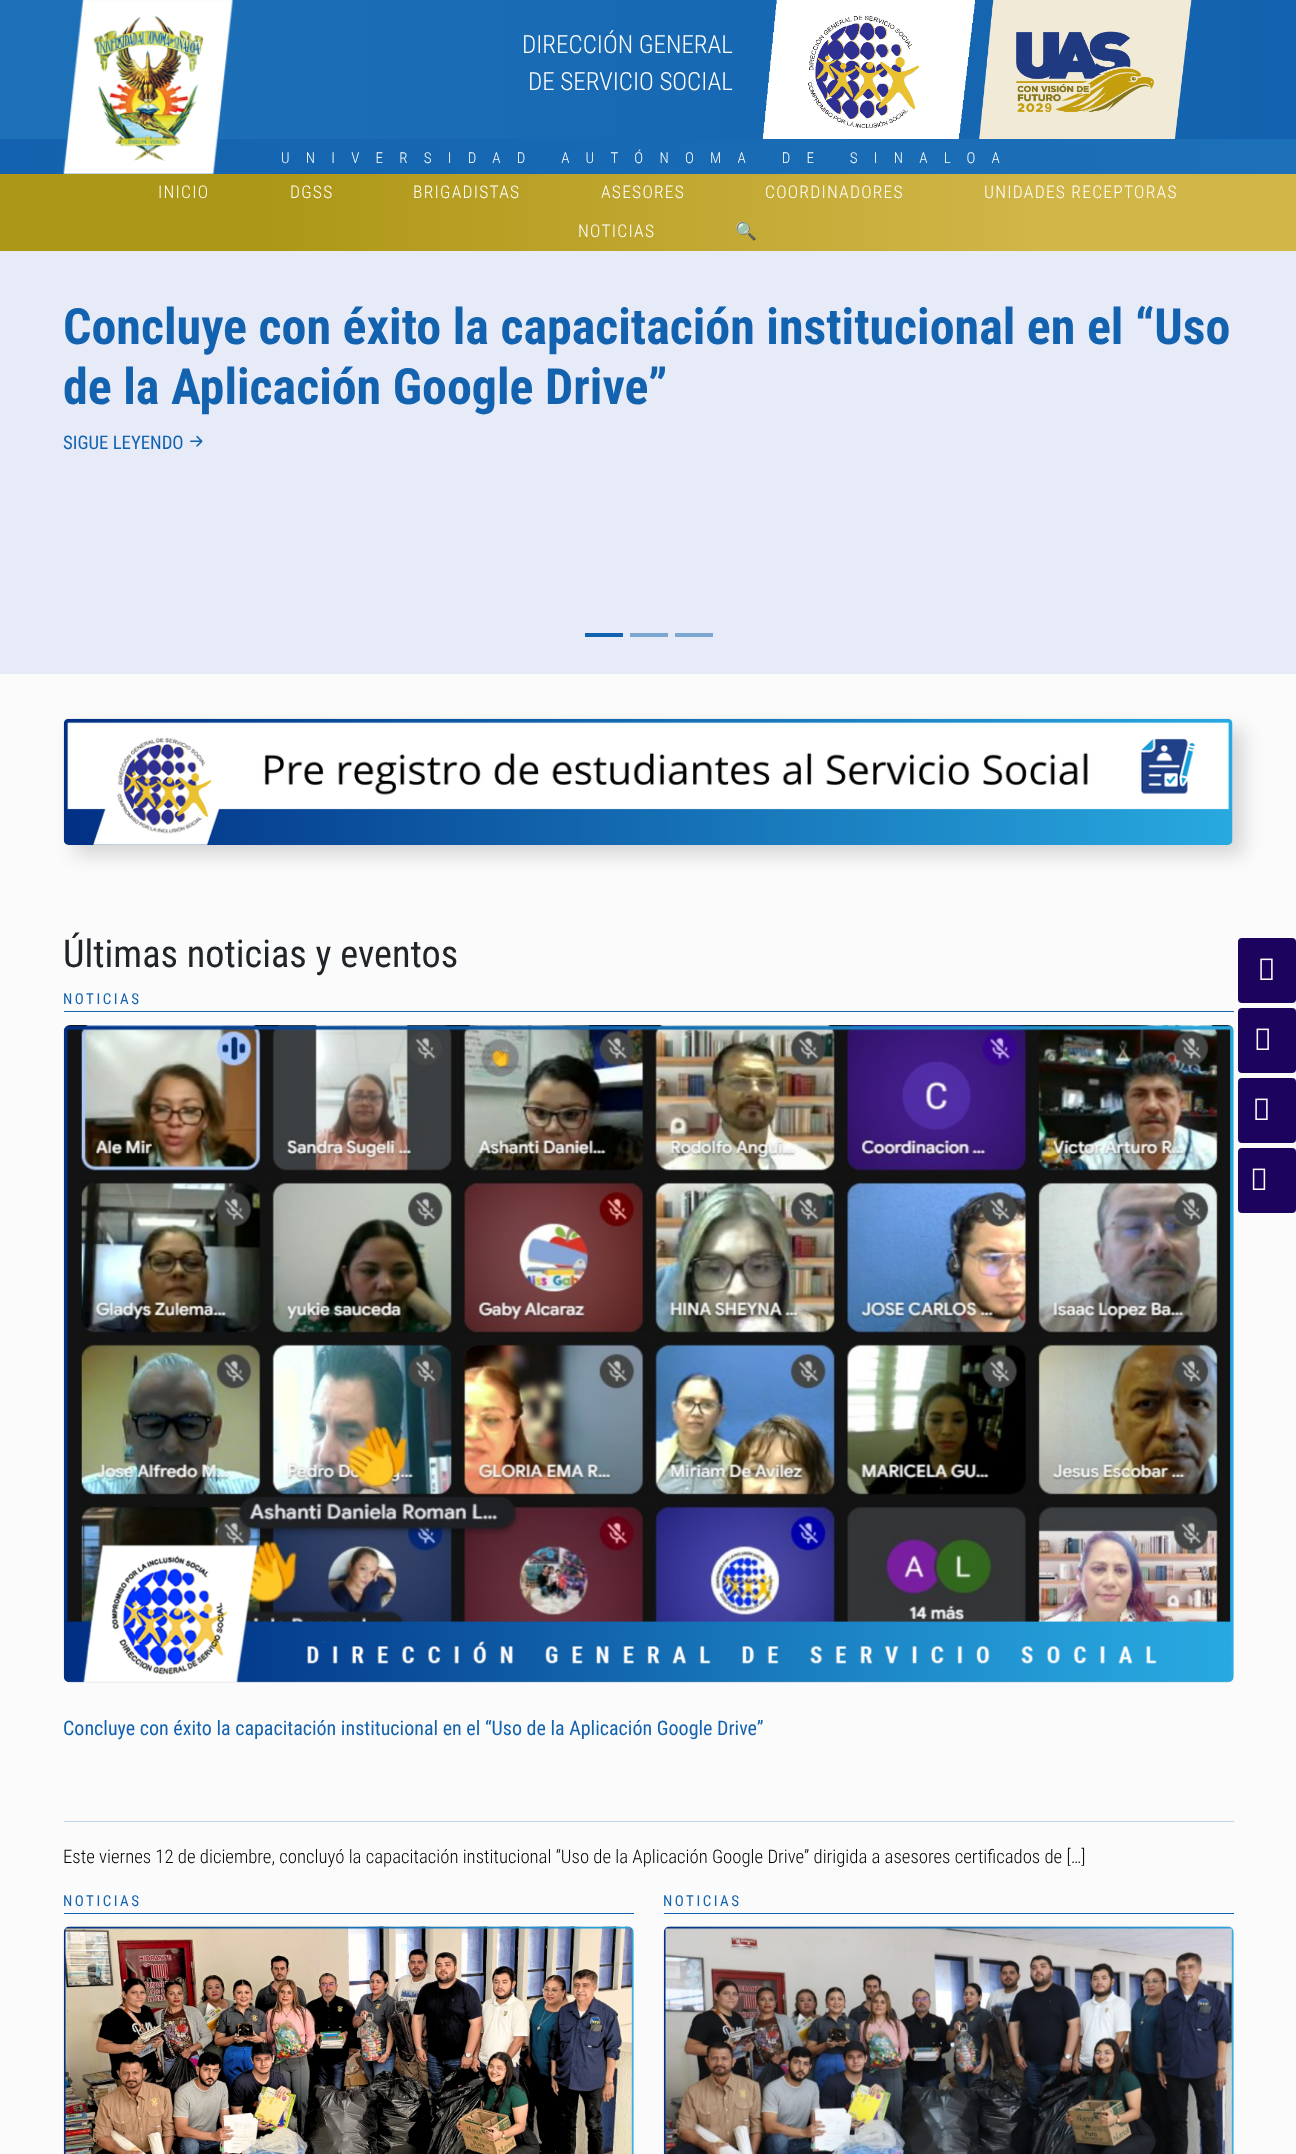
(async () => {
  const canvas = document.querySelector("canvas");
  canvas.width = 1296;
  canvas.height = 2154;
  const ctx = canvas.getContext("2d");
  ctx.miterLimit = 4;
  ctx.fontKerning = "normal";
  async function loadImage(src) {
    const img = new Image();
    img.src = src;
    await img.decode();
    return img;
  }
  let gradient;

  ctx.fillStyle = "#fbfbfb";
  ctx.fillRect(0, 0, 1296, 2154);
  gradient = ctx.createLinearGradient(0, 87, 1296, 87);
  gradient.addColorStop(0, "#1d71b8");
  gradient.addColorStop(1, "#1362af");
  ctx.fillStyle = gradient;
  ctx.fillRect(0, 0, 1296, 139);
  gradient = ctx.createLinearGradient(0, 156, 1296, 156);
  gradient.addColorStop(0, "#1362af");
  gradient.addColorStop(1, "#1d71b8");
  ctx.fillStyle = gradient;
  ctx.fillRect(0, 139, 1296, 35);
  ctx.drawImage(await loadImage("img/1.png"), 63, 0, 170, 174);
  ctx.drawImage(await loadImage("img/2.png"), 762, 0, 213, 139);
  ctx.drawImage(await loadImage("img/3.png"), 979, 0, 213, 139);
  gradient = ctx.createLinearGradient(0, 213, 1296, 212);
  gradient.addColorStop(0.2, "#ad9716");
  gradient.addColorStop(0.8, "#d1b648");
  ctx.fillStyle = gradient;
  ctx.fillRect(0, 174, 1296, 77);
  ctx.fillStyle = "#e6ebf7";
  ctx.fillRect(0, 251, 1296, 423);
  ctx.drawImage(await loadImage("img/4.png"), 190, 435, 13, 12);
  for (const [x, y, w, h, color] of [
    [585, 633, 38, 4, "#1362af"],
    [630, 633, 38, 4, "#7da7d3"],
    [675, 633, 38, 4, "#7da7d3"],
  ]) {
    ctx.fillStyle = color;
    ctx.fillRect(x, y, w, h);
  }
  ctx.fillStyle = "rgba(0, 0, 0, 0.15)";
  ctx.filter = "blur(9.5px)";
  ctx.beginPath();
  ctx.roundRect(74, 729, 1169, 126, 5);
  ctx.fill();
  ctx.filter = "none";
  ctx.drawImage(await loadImage("img/5.png"), 63, 718, 1170, 127);
  ctx.fillStyle = "#1362af";
  ctx.fillRect(64, 1011, 1170, 1);
  ctx.drawImage(await loadImage("img/6.png"), 63, 1025, 1171, 658);
  ctx.fillStyle = "#c1d5e8";
  ctx.fillRect(64, 1821, 1170, 1);
  ctx.fillStyle = "#1362af";
  ctx.fillRect(64, 1913, 570, 1);
  ctx.drawImage(await loadImage("img/7.png"), 63, 1926, 571, 228);
  ctx.fillRect(664, 1913, 570, 1);
  ctx.drawImage(await loadImage("img/8.png"), 663, 1926, 571, 228);
  ctx.fillStyle = "#1c045e";
  ctx.beginPath();
  ctx.roundRect(1238, 938, 58, 65, 4);
  ctx.fill();
  ctx.drawImage(await loadImage("img/9.png"), 1260, 958, 13, 22);
  ctx.beginPath();
  ctx.roundRect(1238, 1008, 58, 65, 4);
  ctx.fill();
  ctx.drawImage(await loadImage("img/10.png"), 1256, 1028, 13, 22);
  ctx.beginPath();
  ctx.roundRect(1238, 1078, 58, 65, 4);
  ctx.fill();
  ctx.drawImage(await loadImage("img/9.png"), 1255, 1098, 13, 22);
  ctx.beginPath();
  ctx.roundRect(1238, 1148, 58, 65, 4);
  ctx.fill();
  ctx.drawImage(await loadImage("img/11.png"), 1252, 1168, 14, 22);
  ctx.font = "300 25px Roboto Condensed";
  ctx.fillStyle = "#ffffff";
  ctx.fillText("DIRECCIÓN GENERAL", 522, 53);
  ctx.fillText("DE SERVICIO SOCIAL", 528, 90);
  ctx.letterSpacing = "16.25px";
  ctx.font = "300 15px Roboto Condensed";
  ctx.fillText("UNIVERSIDAD AUTÓNOMA DE SINALOA", 281, 163);
  ctx.letterSpacing = "1.25px";
  ctx.font = "300 17.5px Roboto Condensed";
  for (const [text, x, y] of [
    ["INICIO", 158, 198],
    ["DGSS", 290, 198],
    ["BRIGADISTAS", 413, 198],
    ["ASESORES", 601, 198],
    ["COORDINADORES", 765, 198],
    ["UNIDADES RECEPTORAS", 984, 198],
    ["NOTICIAS", 578, 237],
  ]) {
    ctx.fillText(text, x, y);
  }
  ctx.font = "17.5px Noto Color Emoji";
  ctx.fillText("🔍", 735, 237);
  ctx.letterSpacing = "0px";
  ctx.font = "bold 50px Roboto Condensed";
  ctx.fillStyle = "#1362af";
  ctx.fillText("Concluye con éxito la capacitación institucional en el “Uso", 63, 344);
  ctx.fillText("de la Aplicación Google Drive”", 63, 404);
  ctx.font = "18.75px Roboto Condensed";
  ctx.fillText("SIGUE LEYENDO", 63, 449);
  ctx.font = "38.25px Roboto Condensed";
  ctx.fillStyle = "#212529";
  ctx.fillText("Últimas noticias y eventos", 63, 967);
  ctx.letterSpacing = "2.5px";
  ctx.font = "15px Roboto Condensed";
  ctx.fillStyle = "#1362af";
  ctx.fillText("NOTICIAS", 63, 1004);
  ctx.letterSpacing = "0px";
  ctx.font = "20px Roboto Condensed";
  ctx.fillText("Concluye con éxito la capacitación institucional en el “Uso de la Aplicación Google Drive”", 63, 1735);
  ctx.font = "300 18.75px Roboto Condensed";
  ctx.fillStyle = "#000000";
  ctx.fillText("Este viernes 12 de diciembre, concluyó la capacitación institucional “Uso de la Aplicación Google Drive” dirigida a asesores certificados de […]", 63, 1863);
  ctx.letterSpacing = "2.5px";
  ctx.font = "15px Roboto Condensed";
  ctx.fillStyle = "#1362af";
  ctx.fillText("NOTICIAS", 63, 1906);
  ctx.fillText("NOTICIAS", 663, 1906);
})();
